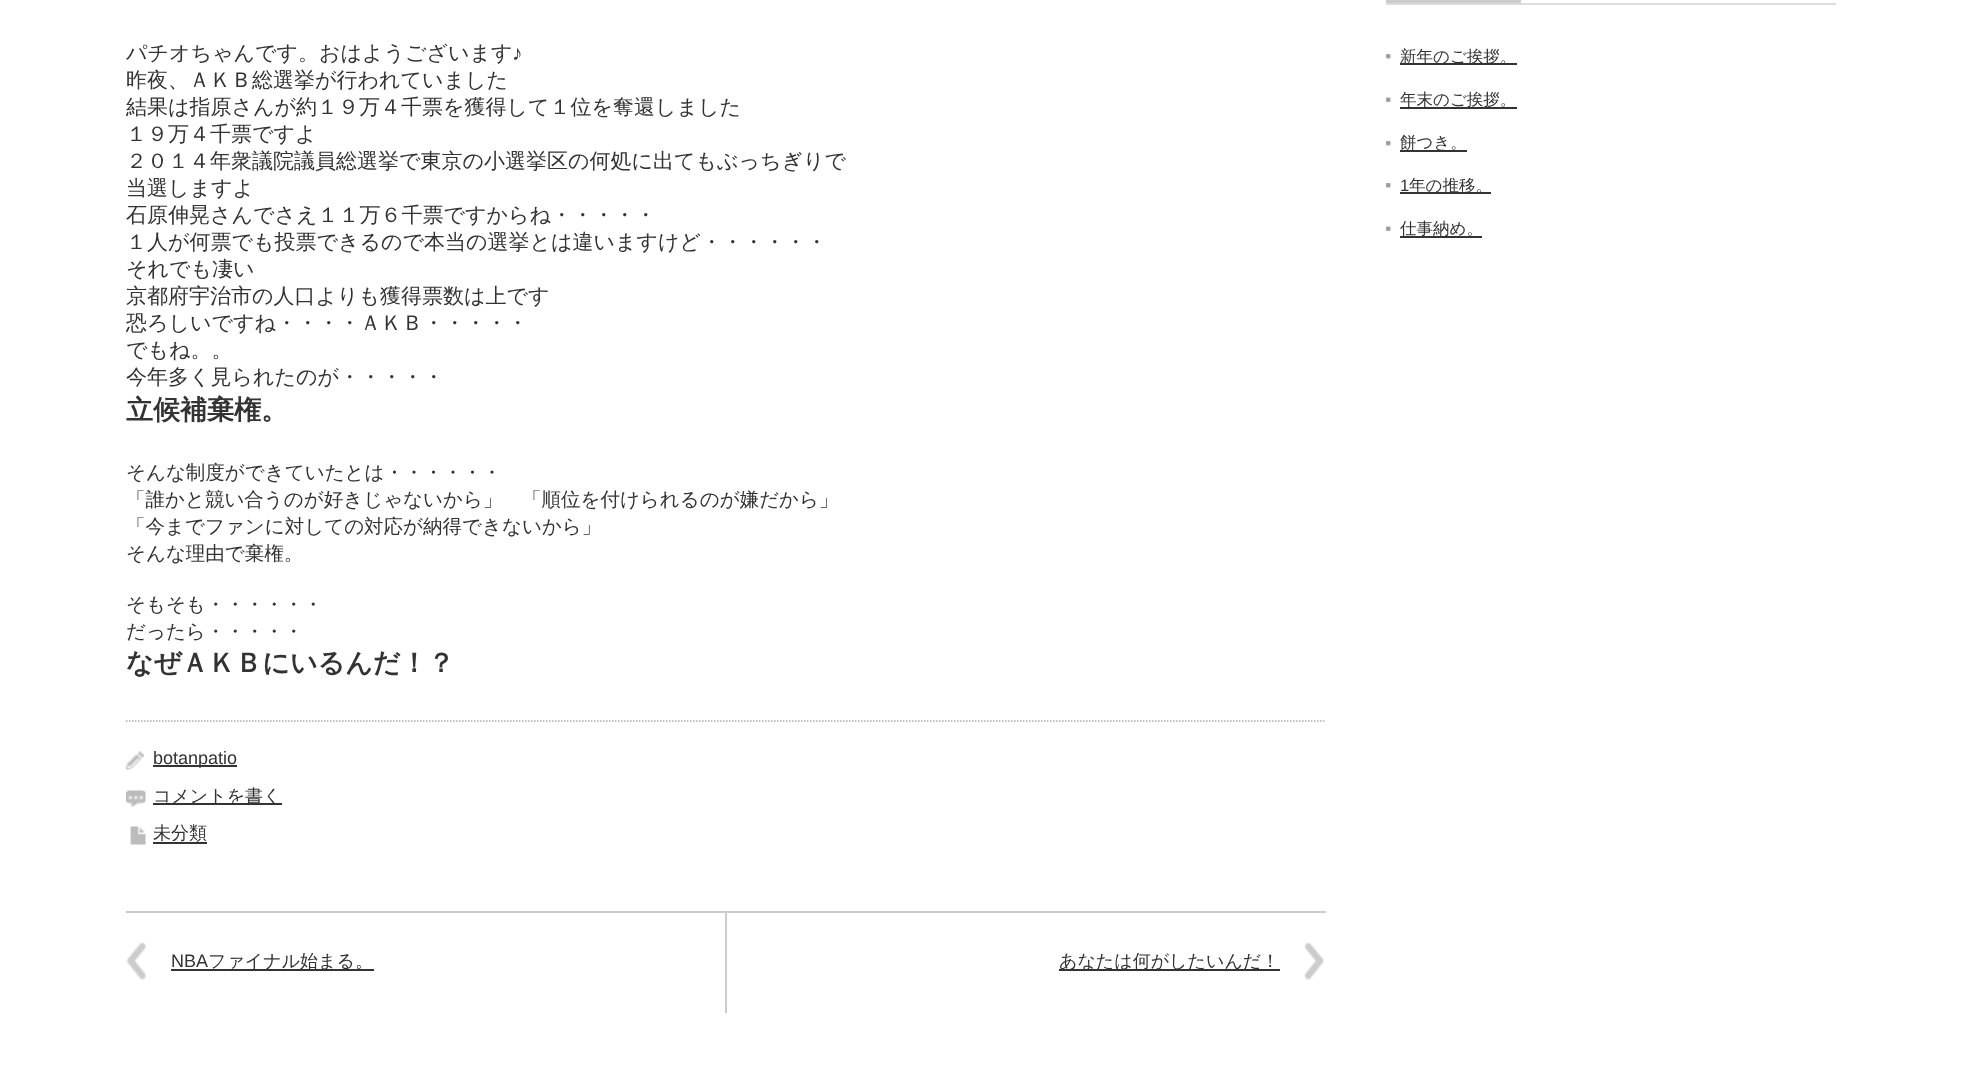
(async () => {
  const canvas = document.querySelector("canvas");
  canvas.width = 1962;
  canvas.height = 1090;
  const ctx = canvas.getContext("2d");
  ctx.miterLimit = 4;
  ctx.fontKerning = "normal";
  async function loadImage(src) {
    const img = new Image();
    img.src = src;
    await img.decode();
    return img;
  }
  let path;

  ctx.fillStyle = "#ffffff";
  ctx.fillRect(0, 0, 1962, 1090);
  path = new Path2D("M126 721H1326");
  ctx.strokeStyle = "#aaaaaa";
  ctx.lineWidth = 1.5;
  ctx.setLineDash([1.5, 1.5]);
  ctx.stroke(path);
  ctx.drawImage(await loadImage("img/1.png"), 126, 751, 18, 19);
  ctx.fillStyle = "#333333";
  ctx.fillRect(153, 765, 84, 2);
  ctx.drawImage(await loadImage("img/2.png"), 126, 790, 20, 17);
  ctx.fillRect(153, 803, 129, 2);
  ctx.drawImage(await loadImage("img/3.png"), 130, 826, 16, 19);
  ctx.fillRect(153, 842, 54, 2);
  ctx.fillStyle = "#cccccc";
  ctx.fillRect(126, 911, 1200, 2);
  ctx.drawImage(await loadImage("img/4.png"), 126, 942, 20, 38);
  ctx.fillRect(725, 912, 2, 101);
  ctx.fillStyle = "#333333";
  ctx.fillRect(171, 969, 203, 2);
  ctx.drawImage(await loadImage("img/5.png"), 1304, 942, 21, 38);
  for (const [x, y, w, h, color] of [
    [1059, 969, 221, 2, "#333333"],
    [1386, 3, 450, 2, "#dddddd"],
    [1386, 0, 135, 3, "#cccccc"],
  ]) {
    ctx.fillStyle = color;
    ctx.fillRect(x, y, w, h);
  }
  ctx.drawImage(await loadImage("img/6.png"), 1386, 54, 5, 5);
  ctx.fillStyle = "#333333";
  ctx.fillRect(1400, 63, 117, 2);
  ctx.drawImage(await loadImage("img/7.png"), 1386, 97, 5, 5);
  ctx.fillRect(1400, 107, 117, 2);
  ctx.drawImage(await loadImage("img/6.png"), 1386, 141, 5, 5);
  ctx.fillRect(1400, 150, 67, 2);
  ctx.drawImage(await loadImage("img/6.png"), 1386, 183, 5, 5);
  ctx.fillRect(1400, 192, 91, 2);
  ctx.drawImage(await loadImage("img/7.png"), 1386, 226, 5, 5);
  ctx.fillRect(1400, 236, 82, 2);
  ctx.font = "500 21px WenQuanYi Zen Hei";
  ctx.fillText("パチオちゃんです。おはようございます", 126, 60);
  ctx.font = "21px Liberation Sans";
  ctx.fillText("♪", 512, 60);
  ctx.font = "500 21px WenQuanYi Zen Hei";
  for (const [text, x, y] of [
    ["昨夜、ＡＫＢ総選挙が行われていました", 126, 87],
    ["結果は指原さんが約１９万４千票を獲得して１位を奪還しました", 126, 114],
    ["１９万４千票ですよ", 126, 141],
    ["２０１４年衆議院議員総選挙で東京の小選挙区の何処に出てもぶっちぎりで", 126, 168],
    ["当選しますよ", 126, 195],
    ["石原伸晃さんでさえ１１万６千票ですからね・・・・・", 126, 222],
    ["１人が何票でも投票できるので本当の選挙とは違いますけど・・・・・・", 126, 249],
    ["それでも凄い", 126, 276],
    ["京都府宇治市の人口よりも獲得票数は上です", 126, 303],
    ["恐ろしいですね・・・・ＡＫＢ・・・・・", 126, 330],
    ["でもね。。", 126, 357],
    ["今年多く見られたのが・・・・・", 126, 384],
  ]) {
    ctx.fillText(text, x, y);
  }
  ctx.font = "bold 27px WenQuanYi Zen Hei";
  ctx.fillText("立候補棄権。", 126, 419);
  ctx.font = "500 19.5px WenQuanYi Zen Hei";
  for (const [text, x, y] of [
    ["そんな制度ができていたとは・・・・・・", 126, 479],
    ["「誰かと競い合うのが好きじゃないから」　「順位を付けられるのが嫌だから」", 126, 506],
    ["「今までファンに対しての対応が納得できないから」", 126, 533],
    ["そんな理由で棄権。", 126, 560],
    ["そもそも・・・・・・", 126, 611],
    ["だったら・・・・・", 126, 638],
  ]) {
    ctx.fillText(text, x, y);
  }
  ctx.font = "bold 27px WenQuanYi Zen Hei";
  ctx.fillText("なぜＡＫＢにいるんだ！？", 126, 672);
  ctx.font = "18px Liberation Sans";
  ctx.fillText("botanpatio", 153, 764);
  ctx.font = "500 18px WenQuanYi Zen Hei";
  ctx.fillText("コメントを書く", 153, 802);
  ctx.fillText("未分類", 153, 839);
  ctx.font = "18px Liberation Sans";
  ctx.fillText("NBA", 171, 967);
  ctx.font = "500 18px WenQuanYi Zen Hei";
  ctx.fillText("ファイナル始まる。", 208, 967);
  ctx.fillText("あなたは何がしたいんだ！", 1059, 967);
  ctx.font = "500 16.5px WenQuanYi Zen Hei";
  for (const [text, x, y] of [
    ["新年のご挨拶。", 1400, 62],
    ["年末のご挨拶。", 1400, 105],
    ["餅つき。", 1400, 148],
  ]) {
    ctx.fillText(text, x, y);
  }
  ctx.font = "16.5px Liberation Sans";
  ctx.fillText("1", 1400, 191);
  ctx.font = "500 16.5px WenQuanYi Zen Hei";
  ctx.fillText("年の推移。", 1409, 191);
  ctx.fillText("仕事納め。", 1400, 234);
})();
